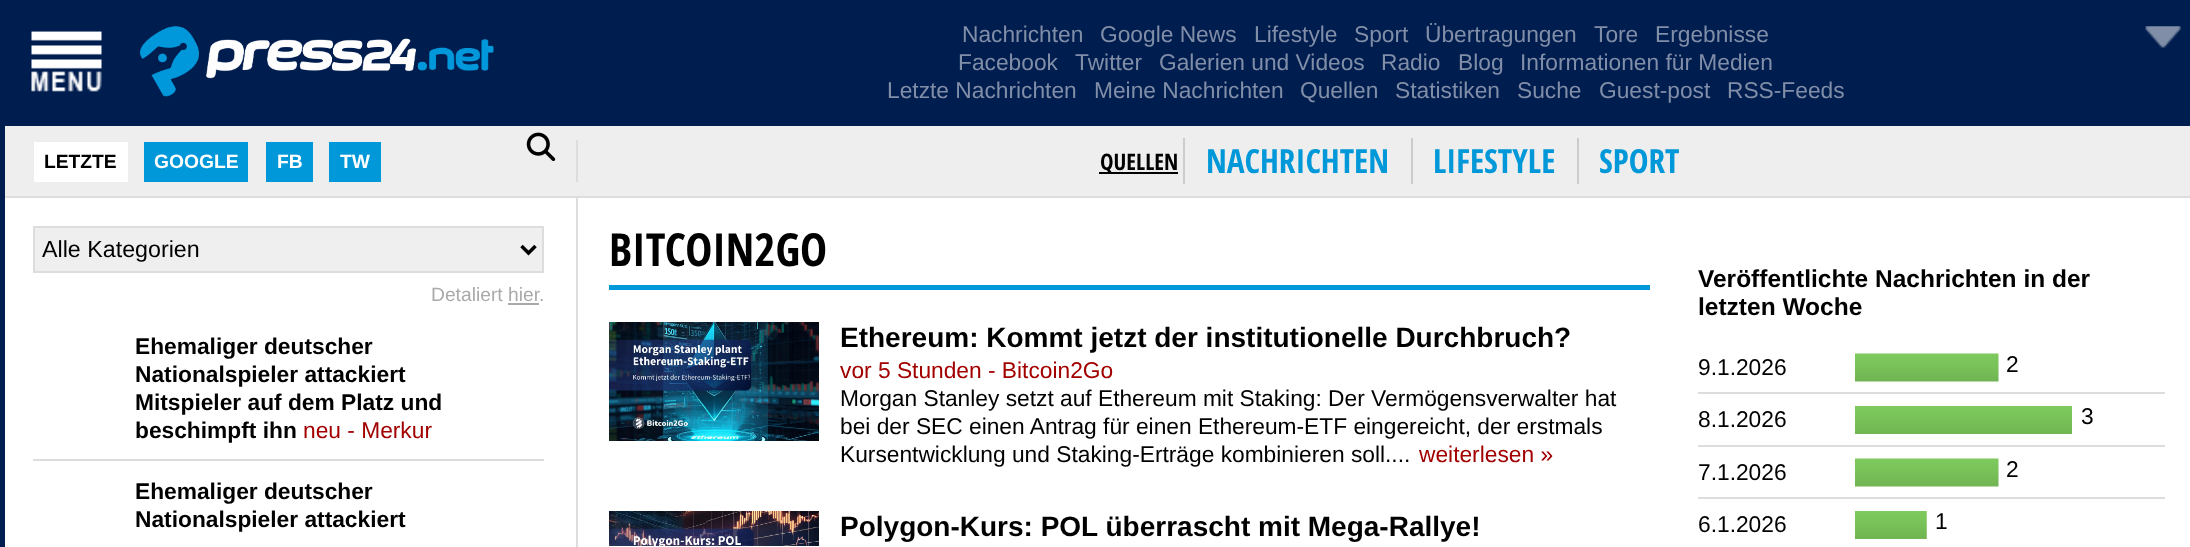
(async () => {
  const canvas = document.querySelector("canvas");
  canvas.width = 2190;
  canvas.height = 547;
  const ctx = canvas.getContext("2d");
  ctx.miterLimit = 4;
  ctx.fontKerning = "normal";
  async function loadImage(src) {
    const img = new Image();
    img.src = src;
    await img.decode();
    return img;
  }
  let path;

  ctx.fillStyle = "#ffffff";
  ctx.fillRect(0, 0, 2190, 547);
  ctx.fillStyle = "#001d4f";
  ctx.fillRect(0, 0, 5, 547);
  ctx.fillRect(5, 0, 2185, 126);
  ctx.drawImage(await loadImage("img/1.png"), 31, 31, 71, 61);
  ctx.drawImage(await loadImage("img/2.png"), 140, 26, 354, 71);
  ctx.drawImage(await loadImage("img/3.png"), 2145, 26, 36, 22);
  for (const [x, y, w, h, color] of [
    [5, 126, 2185, 70, "#eeeeee"],
    [5, 196, 2185, 2, "#dddddd"],
    [576, 140, 2, 42, "#dddddd"],
    [34, 142, 94, 40, "#ffffff"],
    [144, 142, 104, 40, "#0098d8"],
    [266, 142, 47, 40, "#0098d8"],
    [329, 142, 52, 40, "#0098d8"],
  ]) {
    ctx.fillStyle = color;
    ctx.fillRect(x, y, w, h);
  }
  ctx.drawImage(await loadImage("img/4.png"), 526, 132, 30, 29);
  for (const [x, y, w, h, color] of [
    [1099, 172, 79, 2, "#000000"],
    [1183, 138, 2, 46, "#cccccc"],
    [1411, 138, 2, 46, "#cccccc"],
    [1577, 138, 2, 46, "#cccccc"],
    [576, 198, 2, 349, "#dddddd"],
  ]) {
    ctx.fillStyle = color;
    ctx.fillRect(x, y, w, h);
  }
  ctx.fillStyle = "#efefef";
  ctx.beginPath();
  ctx.rect(34, 227, 509, 45);
  ctx.fill();
  ctx.strokeStyle = "#dddddd";
  ctx.lineWidth = 2;
  ctx.stroke();
  path = new Path2D("M521.5 246L528.5 253L535.5 246");
  ctx.strokeStyle = "#000000";
  ctx.lineWidth = 3.5;
  ctx.stroke(path);
  for (const [x, y, w, h, color] of [
    [508, 303, 31, 2, "#aaaaaa"],
    [33, 459, 511, 2, "#dddddd"],
    [609, 285, 1041, 5, "#0098d8"],
  ]) {
    ctx.fillStyle = color;
    ctx.fillRect(x, y, w, h);
  }
  ctx.drawImage(await loadImage("img/5.png"), 609, 322, 210, 119);
  ctx.drawImage(await loadImage("img/6.png"), 609, 511, 210, 35);
  ctx.fillStyle = "#dddddd";
  ctx.fillRect(1698, 392, 467, 2);
  ctx.drawImage(await loadImage("img/7.png"), 1855, 353, 144, 29);
  ctx.fillRect(1698, 445, 467, 2);
  ctx.drawImage(await loadImage("img/8.png"), 1855, 406, 217, 28);
  ctx.fillRect(1698, 497, 467, 2);
  ctx.drawImage(await loadImage("img/7.png"), 1855, 458, 144, 29);
  ctx.drawImage(await loadImage("img/9.png"), 1855, 511, 72, 28);
  ctx.font = "22.75px Liberation Sans";
  ctx.fillStyle = "#808ea7";
  for (const [text, x, y] of [
    ["Nachrichten", 962, 42],
    ["Google News", 1100, 42],
    ["Lifestyle", 1254, 42],
    ["Sport", 1354, 42],
    ["Übertragungen", 1425, 42],
    ["Tore", 1594, 42],
    ["Ergebnisse", 1655, 42],
    ["Facebook", 958, 70],
    ["Twitter", 1075, 70],
    ["Galerien und Videos", 1159, 70],
    ["Radio", 1381, 70],
    ["Blog", 1458, 70],
    ["Informationen für Medien", 1520, 70],
    ["Letzte Nachrichten", 887, 98],
    ["Meine Nachrichten", 1094, 98],
    ["Quellen", 1300, 98],
    ["Statistiken", 1395, 98],
    ["Suche", 1517, 98],
    ["Guest-post", 1599, 98],
    ["RSS-Feeds", 1727, 98],
  ]) {
    ctx.fillText(text, x, y);
  }
  ctx.font = "bold 19.25px Liberation Sans";
  ctx.fillStyle = "#000000";
  ctx.fillText("LETZTE", 44, 168);
  ctx.fillStyle = "#ffffff";
  for (const [text, x, y] of [
    ["GOOGLE", 154, 168],
    ["FB", 277, 168],
    ["TW", 340, 168],
  ]) {
    ctx.fillText(text, x, y);
  }
  ctx.font = "bold 22.75px Open Sans Condensed";
  ctx.fillStyle = "#000000";
  ctx.fillText("QUELLEN", 1100, 170);
  ctx.font = "bold 33.25px Open Sans Condensed";
  ctx.fillStyle = "#0098d8";
  for (const [text, x, y] of [
    ["NACHRICHTEN", 1206, 173],
    ["LIFESTYLE", 1433, 173],
    ["SPORT", 1599, 173],
  ]) {
    ctx.fillText(text, x, y);
  }
  ctx.font = "23.25px Liberation Sans";
  ctx.fillStyle = "#000000";
  ctx.fillText("Alle Kategorien", 42, 257);
  ctx.font = "19.25px Liberation Sans";
  ctx.fillStyle = "#aaaaaa";
  ctx.fillText("Detaliert hier", 431, 301);
  ctx.fillText(".", 539, 301);
  ctx.font = "bold 22.75px Liberation Sans";
  ctx.fillStyle = "#000000";
  for (const [text, x, y] of [
    ["Ehemaliger deutscher", 135, 354],
    ["Nationalspieler attackiert", 135, 382],
    ["Mitspieler auf dem Platz und", 135, 410],
    ["beschimpft ihn", 135, 438],
  ]) {
    ctx.fillText(text, x, y);
  }
  ctx.font = "22.75px Liberation Sans";
  ctx.fillStyle = "#a20000";
  ctx.fillText("neu - Merkur", 303, 438);
  ctx.font = "bold 22.75px Liberation Sans";
  ctx.fillStyle = "#000000";
  ctx.fillText("Ehemaliger deutscher", 135, 499);
  ctx.fillText("Nationalspieler attackiert", 135, 527);
  ctx.font = "bold 45.5px Open Sans Condensed";
  ctx.fillText("BITCOIN2GO", 609, 266);
  ctx.font = "bold 28px Liberation Sans";
  ctx.fillText("Ethereum: Kommt jetzt der institutionelle Durchbruch?", 840, 347);
  ctx.font = "22.75px Liberation Sans";
  ctx.fillStyle = "#a20000";
  ctx.fillText("vor 5 Stunden - Bitcoin2Go", 840, 378);
  ctx.fillStyle = "#000000";
  for (const [text, x, y] of [
    ["Morgan Stanley setzt auf Ethereum mit Staking: Der Vermögensverwalter hat", 840, 406],
    ["bei der SEC einen Antrag für einen Ethereum-ETF eingereicht, der erstmals", 840, 434],
    ["Kursentwicklung und Staking-Erträge kombinieren soll....", 840, 462],
  ]) {
    ctx.fillText(text, x, y);
  }
  ctx.fillStyle = "#a20000";
  ctx.fillText("weiterlesen »", 1419, 462);
  ctx.font = "bold 28px Liberation Sans";
  ctx.fillStyle = "#000000";
  ctx.fillText("Polygon-Kurs: POL überrascht mit Mega-Rallye!", 840, 536);
  ctx.font = "bold 24.5px Liberation Sans";
  ctx.fillText("Veröffentlichte Nachrichten in der", 1698, 287);
  ctx.fillText("letzten Woche", 1698, 315);
  ctx.font = "22.75px Liberation Sans";
  for (const [text, x, y] of [
    ["9.1.2026", 1698, 375],
    ["2", 2006, 372],
    ["8.1.2026", 1698, 427],
    ["3", 2081, 424],
    ["7.1.2026", 1698, 480],
    ["2", 2006, 477],
    ["6.1.2026", 1698, 532],
    ["1", 1935, 529],
  ]) {
    ctx.fillText(text, x, y);
  }
})();
